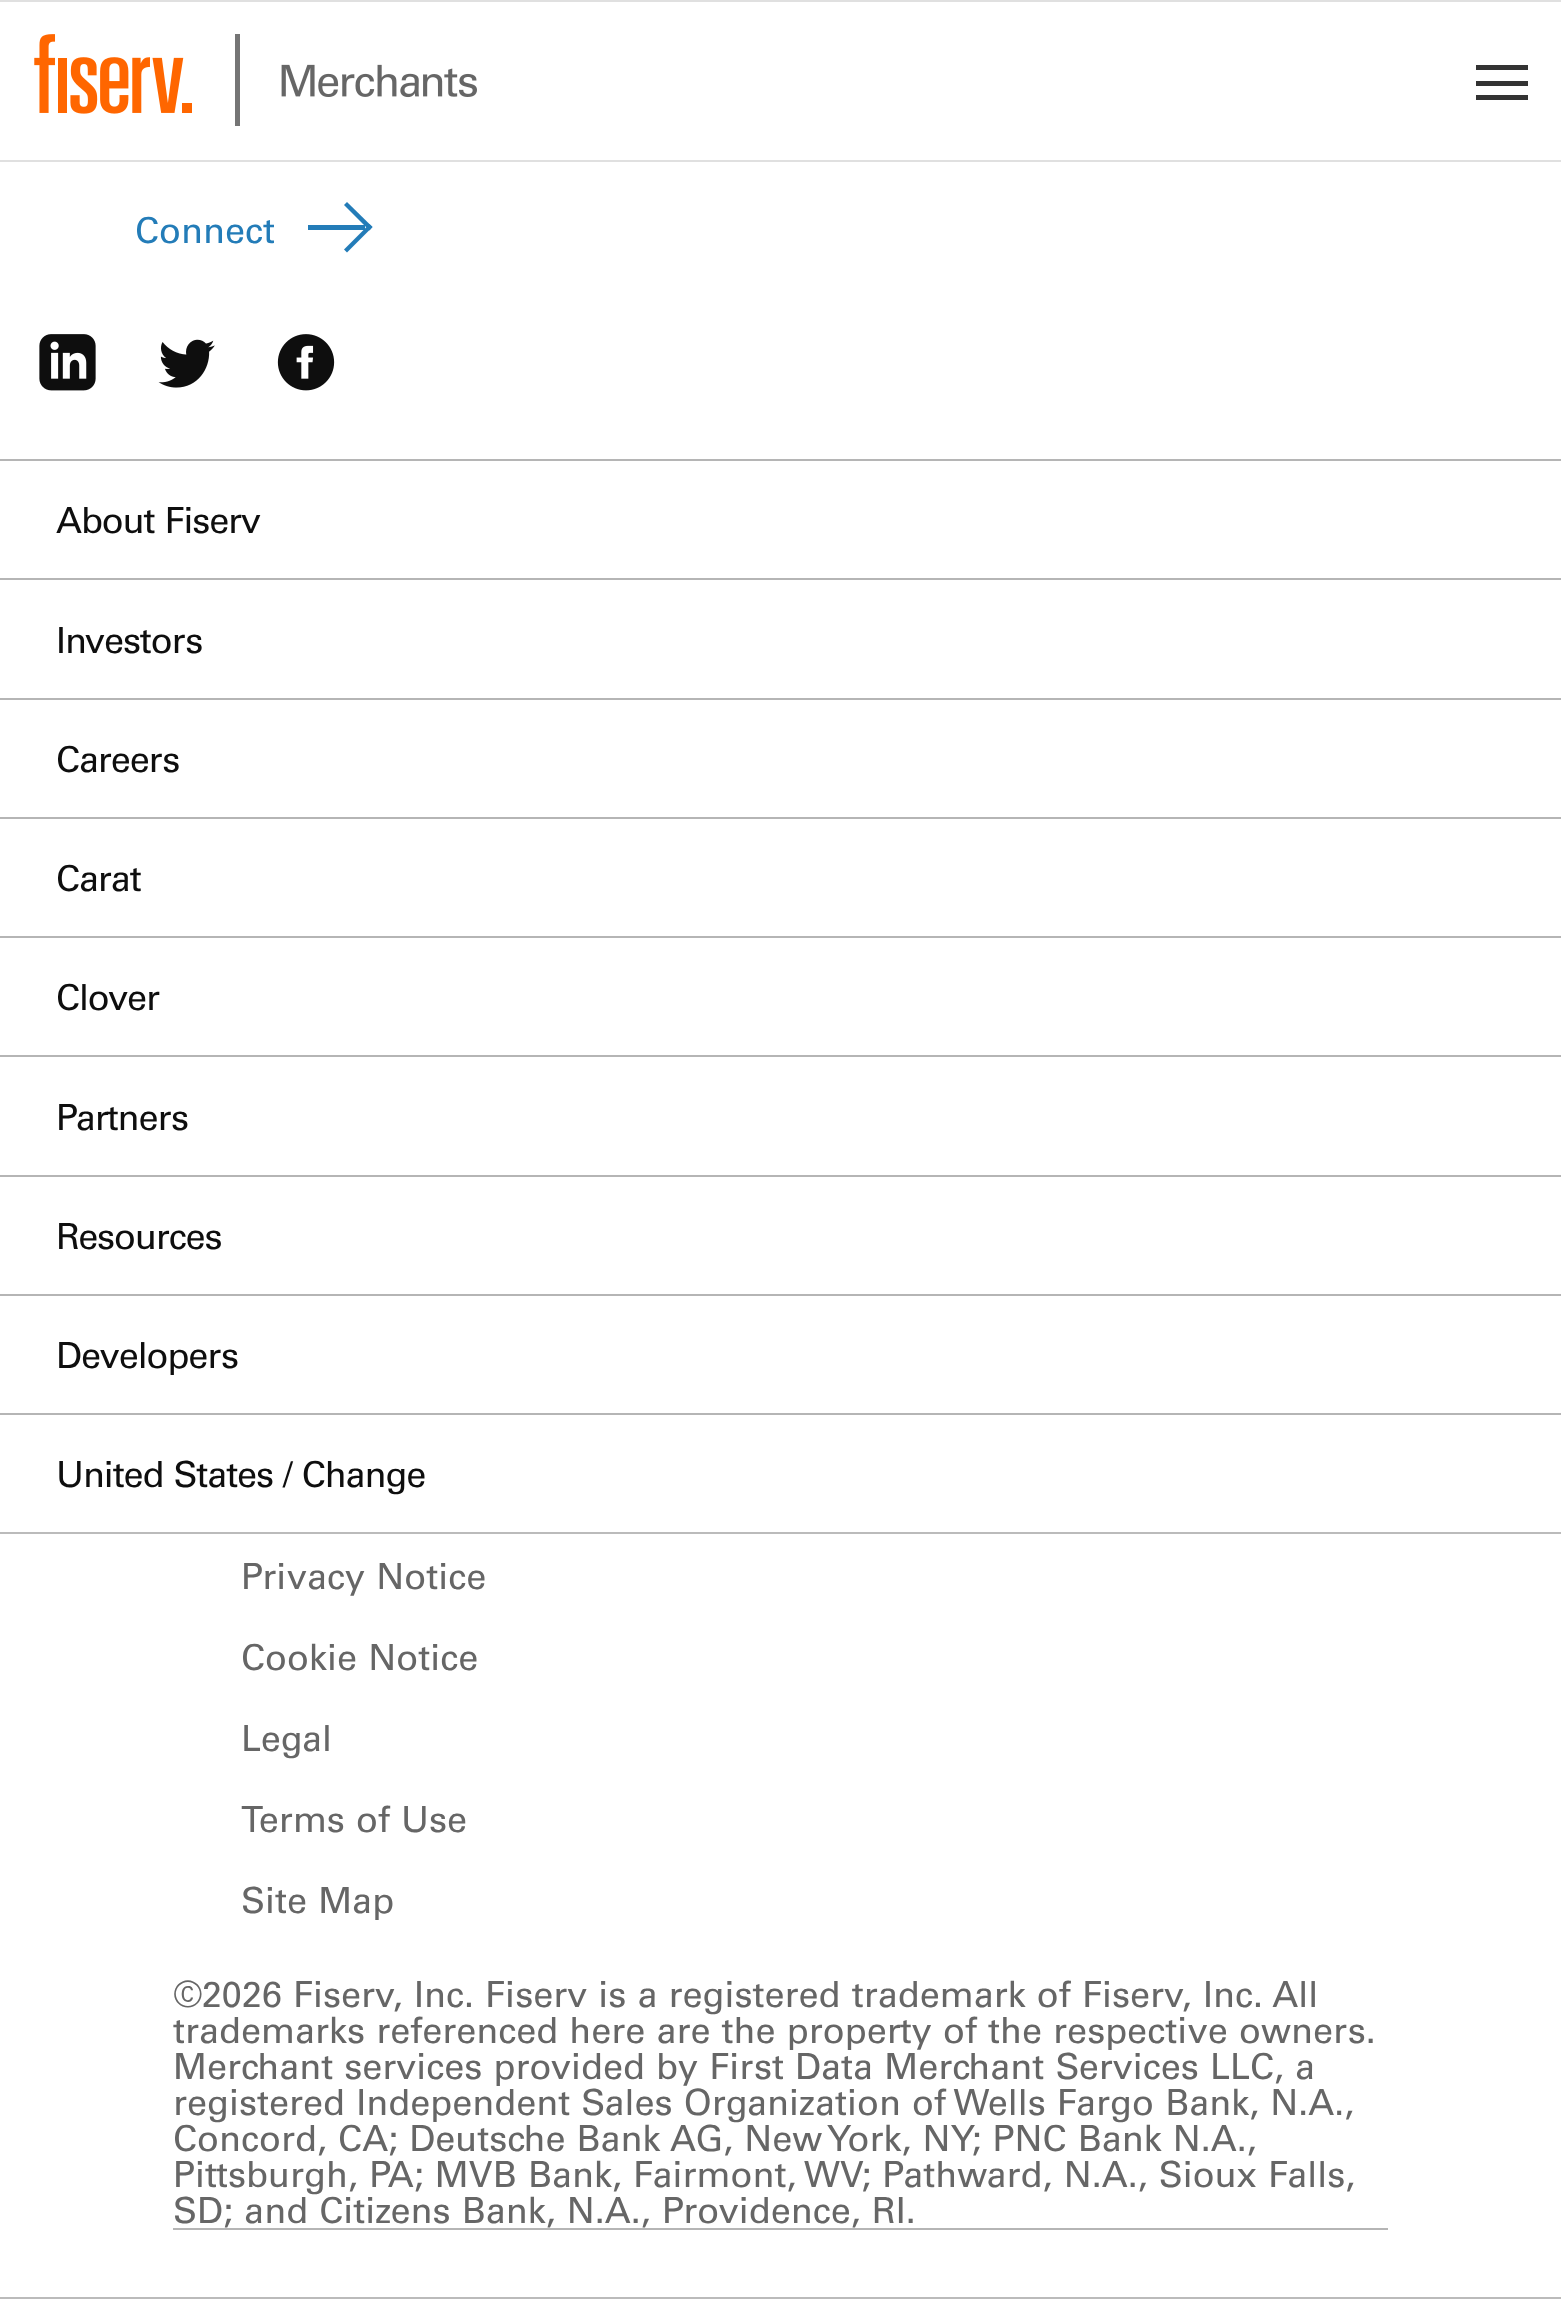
(async () => {
  const canvas = document.querySelector("canvas");
  canvas.width = 1561;
  canvas.height = 2299;
  const ctx = canvas.getContext("2d");
  ctx.miterLimit = 4;
  ctx.fontKerning = "normal";
  async function loadImage(src) {
    const img = new Image();
    img.src = src;
    await img.decode();
    return img;
  }
  let path;

  ctx.fillStyle = "#ffffff";
  ctx.fillRect(0, 0, 1561, 2299);
  ctx.fillStyle = "#e0e0e0";
  ctx.fillRect(0, 0, 1561, 2);
  ctx.fillRect(0, 160, 1561, 2);
  ctx.drawImage(await loadImage("img/1.png"), 34, 34, 443, 92);
  for (const [x, y, w, h, color] of [
    [1476, 95, 52, 5, "#333333"],
    [1476, 65, 52, 5, "#333333"],
    [1476, 81, 52, 5, "#333333"],
    [308, 225, 57, 5, "#237cb8"],
  ]) {
    ctx.fillStyle = color;
    ctx.fillRect(x, y, w, h);
  }
  path = new Path2D("M347 202L372.5 227L369.5 230.5L344 205Z");
  ctx.fill(path);
  path = new Path2D("M369.5 224L372.5 227L347 252.5L344 249.5Z");
  ctx.fill(path);
  ctx.drawImage(await loadImage("img/2.png"), 39, 334, 57, 57);
  ctx.drawImage(await loadImage("img/3.png"), 158, 339, 57, 49);
  ctx.drawImage(await loadImage("img/4.png"), 277, 334, 58, 57);
  for (const [x, y, w, h, color] of [
    [0, 459, 1561, 2, "#b5b5b5"],
    [0, 578, 1561, 2, "#b5b5b5"],
    [0, 698, 1561, 2, "#b5b5b5"],
    [0, 817, 1561, 2, "#b5b5b5"],
    [0, 936, 1561, 2, "#b5b5b5"],
    [0, 1055, 1561, 2, "#b5b5b5"],
    [0, 1175, 1561, 2, "#b5b5b5"],
    [0, 1294, 1561, 2, "#b5b5b5"],
    [0, 1413, 1561, 2, "#b5b5b5"],
    [0, 1532, 1561, 2, "#bbbbbb"],
    [0, 2297, 1561, 2, "#bbbbbb"],
    [173, 2228, 1215, 2, "#b5b5b5"],
  ]) {
    ctx.fillStyle = color;
    ctx.fillRect(x, y, w, h);
  }
  ctx.font = "36px 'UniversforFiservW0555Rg'";
  ctx.fillStyle = "#237cb8";
  ctx.fillText("Connect", 135, 243);
  ctx.letterSpacing = "-1.1px";
  ctx.wordSpacing = "1.1px";
  ctx.fillStyle = "#0e0e0e";
  ctx.fillText("About Fiserv", 56, 533);
  ctx.wordSpacing = "0px";
  for (const [text, x, y] of [
    ["Investors", 56, 653],
    ["Careers", 56, 772],
    ["Carat", 56, 891],
    ["Clover", 56, 1010],
    ["Partners", 56, 1130],
    ["Resources", 56, 1249],
    ["Developers", 56, 1368],
  ]) {
    ctx.fillText(text, x, y);
  }
  ctx.wordSpacing = "1.1px";
  ctx.fillText("United States / Change", 56, 1487);
  ctx.letterSpacing = "0px";
  ctx.fillStyle = "#666666";
  ctx.fillText("Privacy Notice", 241, 1589);
  ctx.fillText("Cookie Notice", 241, 1670);
  ctx.wordSpacing = "0px";
  ctx.fillText("Legal", 241, 1751);
  ctx.wordSpacing = "1.1px";
  for (const [text, x, y] of [
    ["Terms of Use", 241, 1832],
    ["Site Map", 241, 1913],
    ["©2026 Fiserv, Inc. Fiserv is a registered trademark of Fiserv, Inc. All", 173, 2007],
    ["trademarks referenced here are the property of the respective owners.", 173, 2043],
    ["Merchant services provided by First Data Merchant Services LLC, a", 173, 2079],
    ["registered Independent Sales Organization of Wells Fargo Bank, N.A.,", 173, 2115],
    ["Concord, CA; Deutsche Bank AG, New York, NY; PNC Bank N.A.,", 173, 2151],
    ["Pittsburgh, PA; MVB Bank, Fairmont, WV; Pathward, N.A., Sioux Falls,", 173, 2187],
    ["SD; and Citizens Bank, N.A., Providence, RI.", 173, 2223],
  ]) {
    ctx.fillText(text, x, y);
  }
})();
